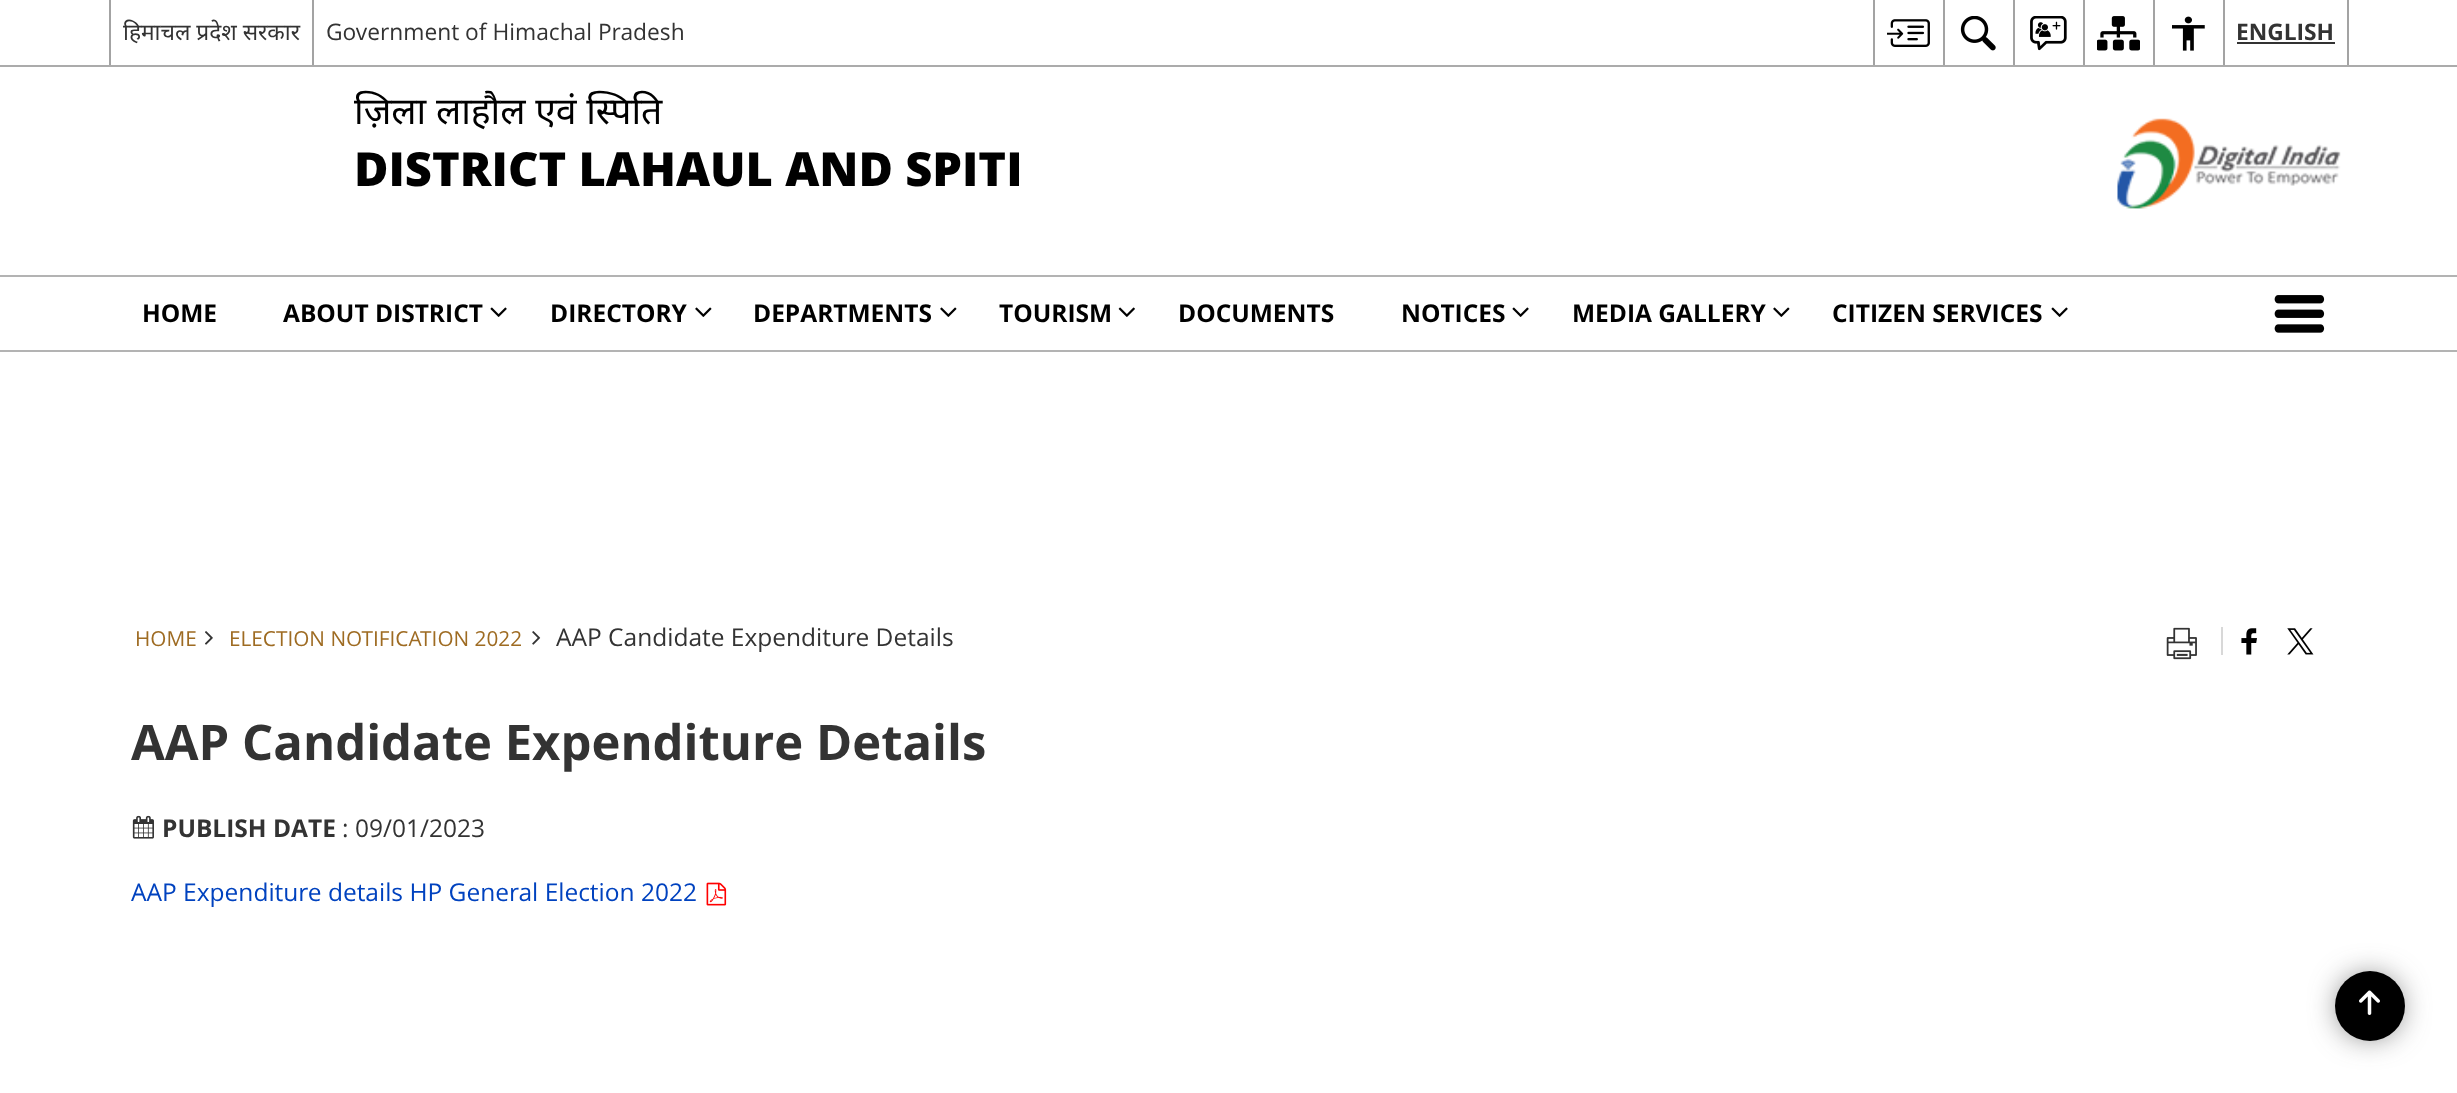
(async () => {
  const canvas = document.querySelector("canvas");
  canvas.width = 2457;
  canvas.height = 1093;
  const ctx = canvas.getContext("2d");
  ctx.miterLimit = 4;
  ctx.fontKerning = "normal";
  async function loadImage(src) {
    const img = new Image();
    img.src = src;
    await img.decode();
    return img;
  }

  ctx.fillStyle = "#ffffff";
  ctx.fillRect(0, 0, 2457, 1093);
  for (const [x, y, w, h, color] of [
    [0, 65, 2457, 2, "#ababab"],
    [109, 0, 2, 65, "#a3a3a3"],
    [312, 0, 2, 65, "#a3a3a3"],
    [1873, 0, 2, 65, "#a3a3a3"],
  ]) {
    ctx.fillStyle = color;
    ctx.fillRect(x, y, w, h);
  }
  ctx.drawImage(await loadImage("img/1.png"), 1887, 19, 43, 28);
  ctx.fillRect(1943, 0, 2, 65);
  ctx.drawImage(await loadImage("img/2.png"), 1960, 16, 36, 35);
  ctx.fillRect(2013, 0, 2, 65);
  ctx.drawImage(await loadImage("img/3.png"), 2030, 16, 37, 35);
  ctx.fillRect(2083, 0, 2, 65);
  ctx.drawImage(await loadImage("img/4.png"), 2097, 16, 43, 35);
  ctx.fillRect(2153, 0, 2, 65);
  ctx.drawImage(await loadImage("img/5.png"), 2172, 16, 33, 35);
  for (const [x, y, w, h, color] of [
    [2347, 0, 2, 65, "#a3a3a3"],
    [2223, 0, 2, 65, "#a3a3a3"],
    [2237, 42, 98, 2, "#333333"],
  ]) {
    ctx.fillStyle = color;
    ctx.fillRect(x, y, w, h);
  }
  ctx.drawImage(await loadImage("img/6.png"), 2117, 118, 224, 91);
  ctx.fillStyle = "#b3b3b3";
  ctx.fillRect(0, 275, 2457, 2);
  ctx.fillRect(0, 350, 2457, 2);
  ctx.drawImage(await loadImage("img/7.png"), 490, 307, 17, 10);
  ctx.drawImage(await loadImage("img/8.png"), 695, 307, 17, 10);
  ctx.drawImage(await loadImage("img/8.png"), 940, 307, 17, 10);
  ctx.drawImage(await loadImage("img/9.png"), 1118, 307, 17, 10);
  ctx.drawImage(await loadImage("img/7.png"), 1512, 307, 17, 10);
  ctx.drawImage(await loadImage("img/8.png"), 1773, 307, 17, 10);
  ctx.drawImage(await loadImage("img/7.png"), 2051, 307, 17, 10);
  ctx.drawImage(await loadImage("img/10.png"), 2274, 295, 51, 38);
  ctx.drawImage(await loadImage("img/11.png"), 205, 631, 8, 14);
  ctx.drawImage(await loadImage("img/12.png"), 532, 631, 9, 14);
  ctx.drawImage(await loadImage("img/13.png"), 2166, 627, 31, 33);
  ctx.fillStyle = "#d8d8d8";
  ctx.fillRect(2221, 627, 2, 28);
  ctx.drawImage(await loadImage("img/14.png"), 2241, 628, 16, 27);
  ctx.drawImage(await loadImage("img/15.png"), 2287, 628, 27, 27);
  ctx.drawImage(await loadImage("img/16.png"), 132, 815, 22, 24);
  ctx.drawImage(await loadImage("img/17.png"), 706, 882, 21, 24);
  ctx.fillStyle = "#3c3c3c";
  ctx.filter = "blur(16.5px)";
  ctx.beginPath();
  ctx.roundRect(2343, 980, 53, 53, 26.5);
  ctx.fill();
  ctx.filter = "none";
  ctx.fillStyle = "#000000";
  ctx.beginPath();
  ctx.arc(2370, 1006, 35, 0, Math.PI * 2);
  ctx.fill();
  ctx.drawImage(await loadImage("img/18.png"), 2359, 990, 21, 25);
  ctx.font = "22.75px Noto Sans";
  ctx.fillStyle = "#333333";
  ctx.fillText("हिमाचल प्रदेश सरकार", 123, 40);
  ctx.font = "22.75px Open Sans";
  ctx.fillText("Government of Himachal Pradesh", 326, 40);
  ctx.font = "bold 22.75px Open Sans";
  ctx.fillText("ENGLISH", 2236, 40);
  ctx.font = "37.25px Noto Sans";
  ctx.fillStyle = "#000000";
  ctx.fillText("ज़िला लाहौल एवं स्पिति", 354, 124);
  ctx.font = "800 47px Open Sans";
  ctx.fillText("DISTRICT LAHAUL AND SPITI", 354, 186);
  ctx.font = "bold 24.5px Open Sans";
  for (const [text, x, y] of [
    ["HOME", 142, 322],
    ["ABOUT DISTRICT", 283, 322],
    ["DIRECTORY", 550, 322],
    ["DEPARTMENTS", 753, 322],
    ["TOURISM", 999, 322],
    ["DOCUMENTS", 1178, 322],
    ["NOTICES", 1401, 322],
    ["MEDIA GALLERY", 1572, 322],
    ["CITIZEN SERVICES", 1832, 322],
  ]) {
    ctx.fillText(text, x, y);
  }
  ctx.font = "20.75px Open Sans";
  ctx.fillStyle = "#9e6b22";
  ctx.fillText("HOME", 135, 646);
  ctx.fillText("ELECTION NOTIFICATION 2022", 229, 646);
  ctx.font = "24.5px Open Sans";
  ctx.fillStyle = "#333333";
  ctx.fillText("AAP Candidate Expenditure Details", 556, 646);
  ctx.font = "bold 49px Open Sans";
  ctx.fillText("AAP Candidate Expenditure Details", 131, 760);
  ctx.font = "bold 24.5px Open Sans";
  ctx.fillText("PUBLISH DATE", 162, 837);
  ctx.font = "24.5px Open Sans";
  ctx.fillText(": 09/01/2023", 342, 837);
  ctx.fillStyle = "#0042bf";
  ctx.fillText("AAP Expenditure details HP General Election 2022", 131, 901);
})();
